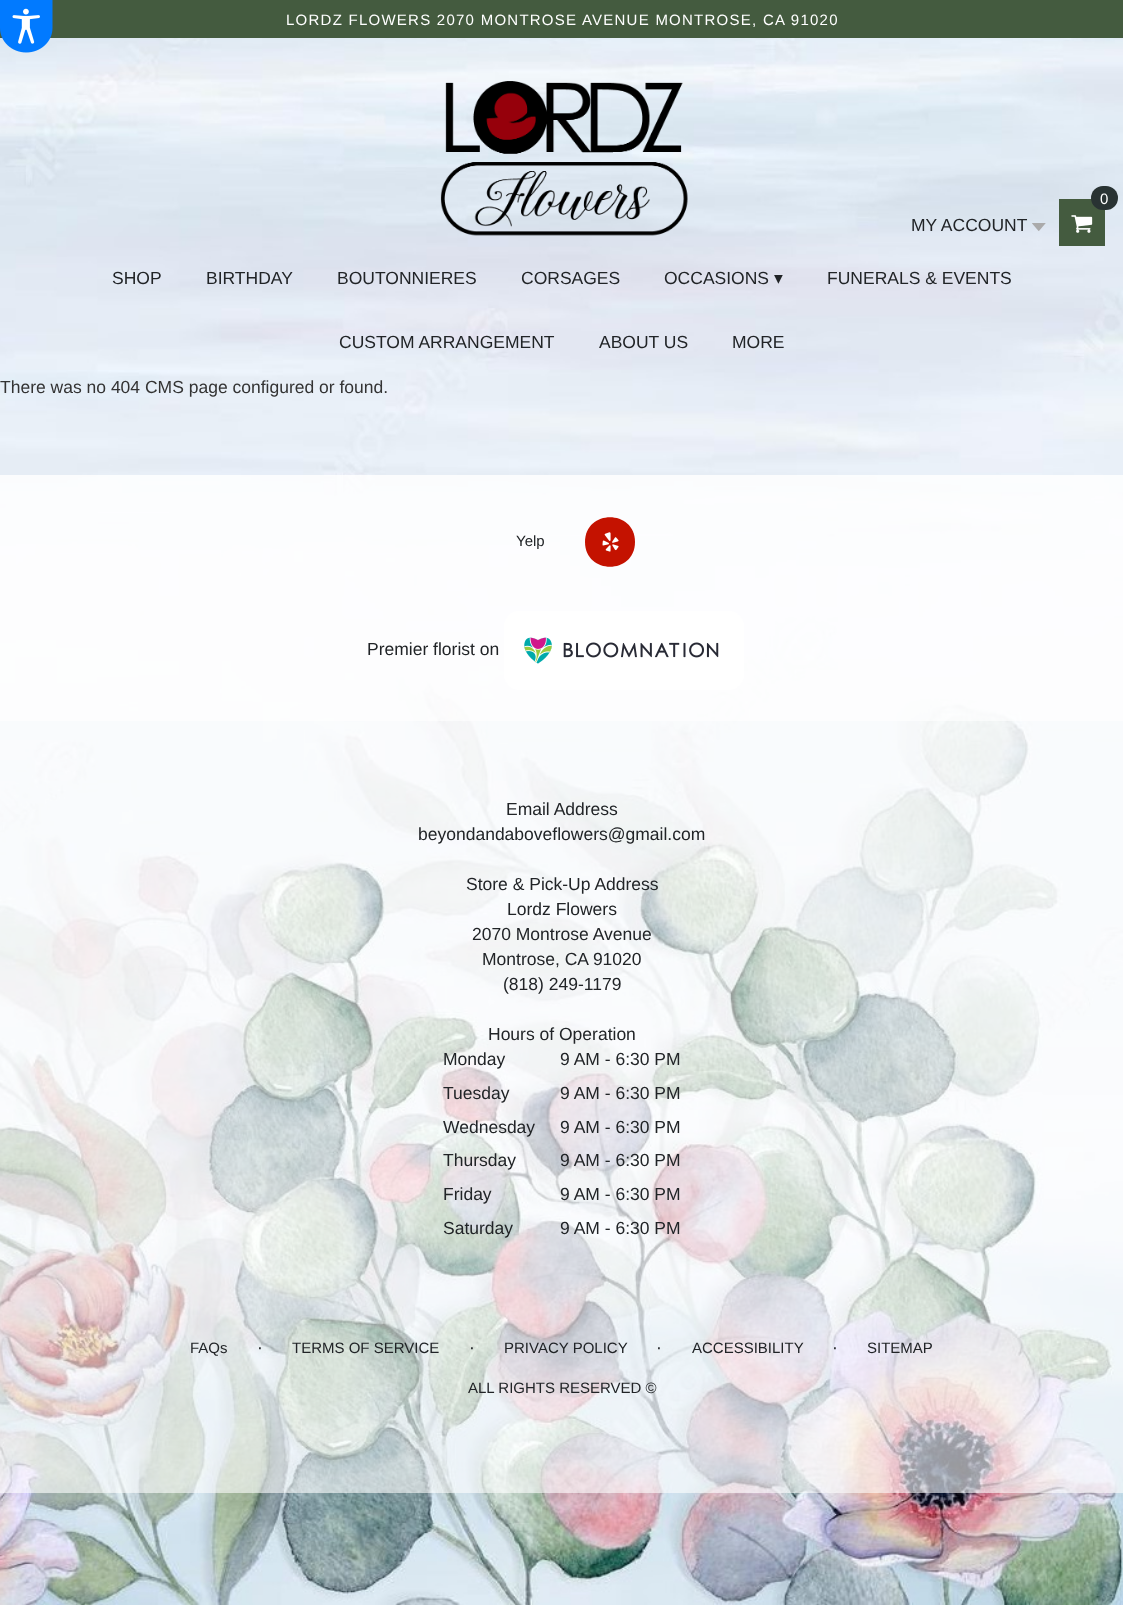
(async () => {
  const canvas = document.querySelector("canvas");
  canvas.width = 1123;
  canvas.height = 1605;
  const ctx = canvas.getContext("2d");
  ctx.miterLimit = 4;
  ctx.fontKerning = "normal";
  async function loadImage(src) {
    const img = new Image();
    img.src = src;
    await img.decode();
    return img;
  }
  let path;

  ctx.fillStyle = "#ffffff";
  ctx.fillRect(0, 0, 1123, 1605);
  ctx.drawImage(await loadImage("img/1.png"), 0, 38, 1123, 1567);
  ctx.fillStyle = "#445b3f";
  ctx.fillRect(0, 0, 1123, 38);
  ctx.drawImage(await loadImage("img/2.png"), 0, 0, 53, 53);
  ctx.drawImage(await loadImage("img/3.png"), 440, 81, 248, 155);
  ctx.fillRect(1059, 199, 46, 47);
  ctx.fillStyle = "#293333";
  ctx.beginPath();
  ctx.roundRect(1091, 186, 27, 24, 12);
  ctx.fill();
  ctx.drawImage(await loadImage("img/4.png"), 1071, 215, 22, 18);
  ctx.drawImage(await loadImage("img/5.png"), 1032, 223, 14, 8);
  ctx.fillStyle = "rgba(255, 255, 255, 0.6)";
  ctx.fillRect(0, 475, 1123, 1018);
  ctx.fillRect(0, 475, 1123, 246);
  ctx.fillStyle = "#c41200";
  path = new Path2D("M635 542C635 509 585 509 585 542C585 575 635 575 635 542Z");
  ctx.fill(path);
  ctx.drawImage(await loadImage("img/6.png"), 602, 532, 17, 20);
  ctx.fillStyle = "#ffffff";
  ctx.beginPath();
  ctx.roundRect(504, 611, 240, 79, 15);
  ctx.fill();
  ctx.drawImage(await loadImage("img/7.png"), 524, 637, 195, 27);
  ctx.letterSpacing = "1.25px";
  ctx.font = "15px Liberation Sans";
  ctx.fillText("LORDZ FLOWERS 2070 MONTROSE AVENUE MONTROSE, CA 91020", 286, 25);
  ctx.letterSpacing = "0px";
  ctx.fillText("0", 1100, 204);
  ctx.font = "17.5px Liberation Sans";
  ctx.fillStyle = "#212427";
  for (const [text, x, y] of [
    ["MY ACCOUNT", 911, 231],
    ["SHOP", 112, 284],
    ["BIRTHDAY", 206, 284],
    ["BOUTONNIERES", 337, 284],
    ["CORSAGES", 521, 284],
    ["OCCASIONS", 664, 284],
  ]) {
    ctx.fillText(text, x, y);
  }
  ctx.font = "17.5px DejaVu Sans";
  ctx.fillText("▾", 774, 284);
  ctx.font = "17.5px Liberation Sans";
  for (const [text, x, y] of [
    ["FUNERALS & EVENTS", 827, 284],
    ["CUSTOM ARRANGEMENT", 339, 348],
    ["ABOUT US", 599, 348],
    ["MORE", 732, 348],
  ]) {
    ctx.fillText(text, x, y);
  }
  ctx.fillStyle = "#333333";
  ctx.fillText("There was no 404 CMS page configured or found.", 0, 393);
  ctx.font = "15px Liberation Sans";
  ctx.fillStyle = "#212427";
  ctx.fillText("Yelp", 516, 546);
  ctx.font = "17.5px Liberation Sans";
  for (const [text, x, y] of [
    ["Premier florist on", 367, 655],
    ["Email Address", 506, 815],
    ["beyondandaboveflowers@gmail.com", 418, 840],
    ["Store & Pick-Up Address", 466, 890],
    ["Lordz Flowers", 507, 915],
    ["2070 Montrose Avenue", 472, 940],
    ["Montrose, CA 91020", 482, 965],
    ["(818) 249-1179", 503, 990],
    ["Hours of Operation", 488, 1040],
    ["Monday", 443, 1065],
    ["9 AM - 6:30 PM", 560, 1065],
    ["Tuesday", 443, 1099],
    ["9 AM - 6:30 PM", 560, 1099],
    ["Wednesday", 443, 1133],
    ["9 AM - 6:30 PM", 560, 1133],
    ["Thursday", 443, 1166],
    ["9 AM - 6:30 PM", 560, 1166],
    ["Friday", 443, 1200],
    ["9 AM - 6:30 PM", 560, 1200],
    ["Saturday", 443, 1234],
    ["9 AM - 6:30 PM", 560, 1234],
  ]) {
    ctx.fillText(text, x, y);
  }
  ctx.font = "15px Liberation Sans";
  ctx.fillText("FAQs", 190, 1353);
  ctx.font = "17.5px Liberation Sans";
  ctx.fillText("·", 257, 1353);
  ctx.font = "15px Liberation Sans";
  ctx.fillText("TERMS OF SERVICE", 292, 1353);
  ctx.font = "17.5px Liberation Sans";
  ctx.fillText("·", 469, 1353);
  ctx.font = "15px Liberation Sans";
  ctx.fillText("PRIVACY POLICY", 504, 1353);
  ctx.font = "17.5px Liberation Sans";
  ctx.fillText("·", 656, 1353);
  ctx.font = "15px Liberation Sans";
  ctx.fillText("ACCESSIBILITY", 692, 1353);
  ctx.font = "17.5px Liberation Sans";
  ctx.fillText("·", 832, 1353);
  ctx.font = "15px Liberation Sans";
  ctx.fillText("SITEMAP", 867, 1353);
  ctx.fillText("ALL RIGHTS RESERVED ©", 468, 1393);
})();
